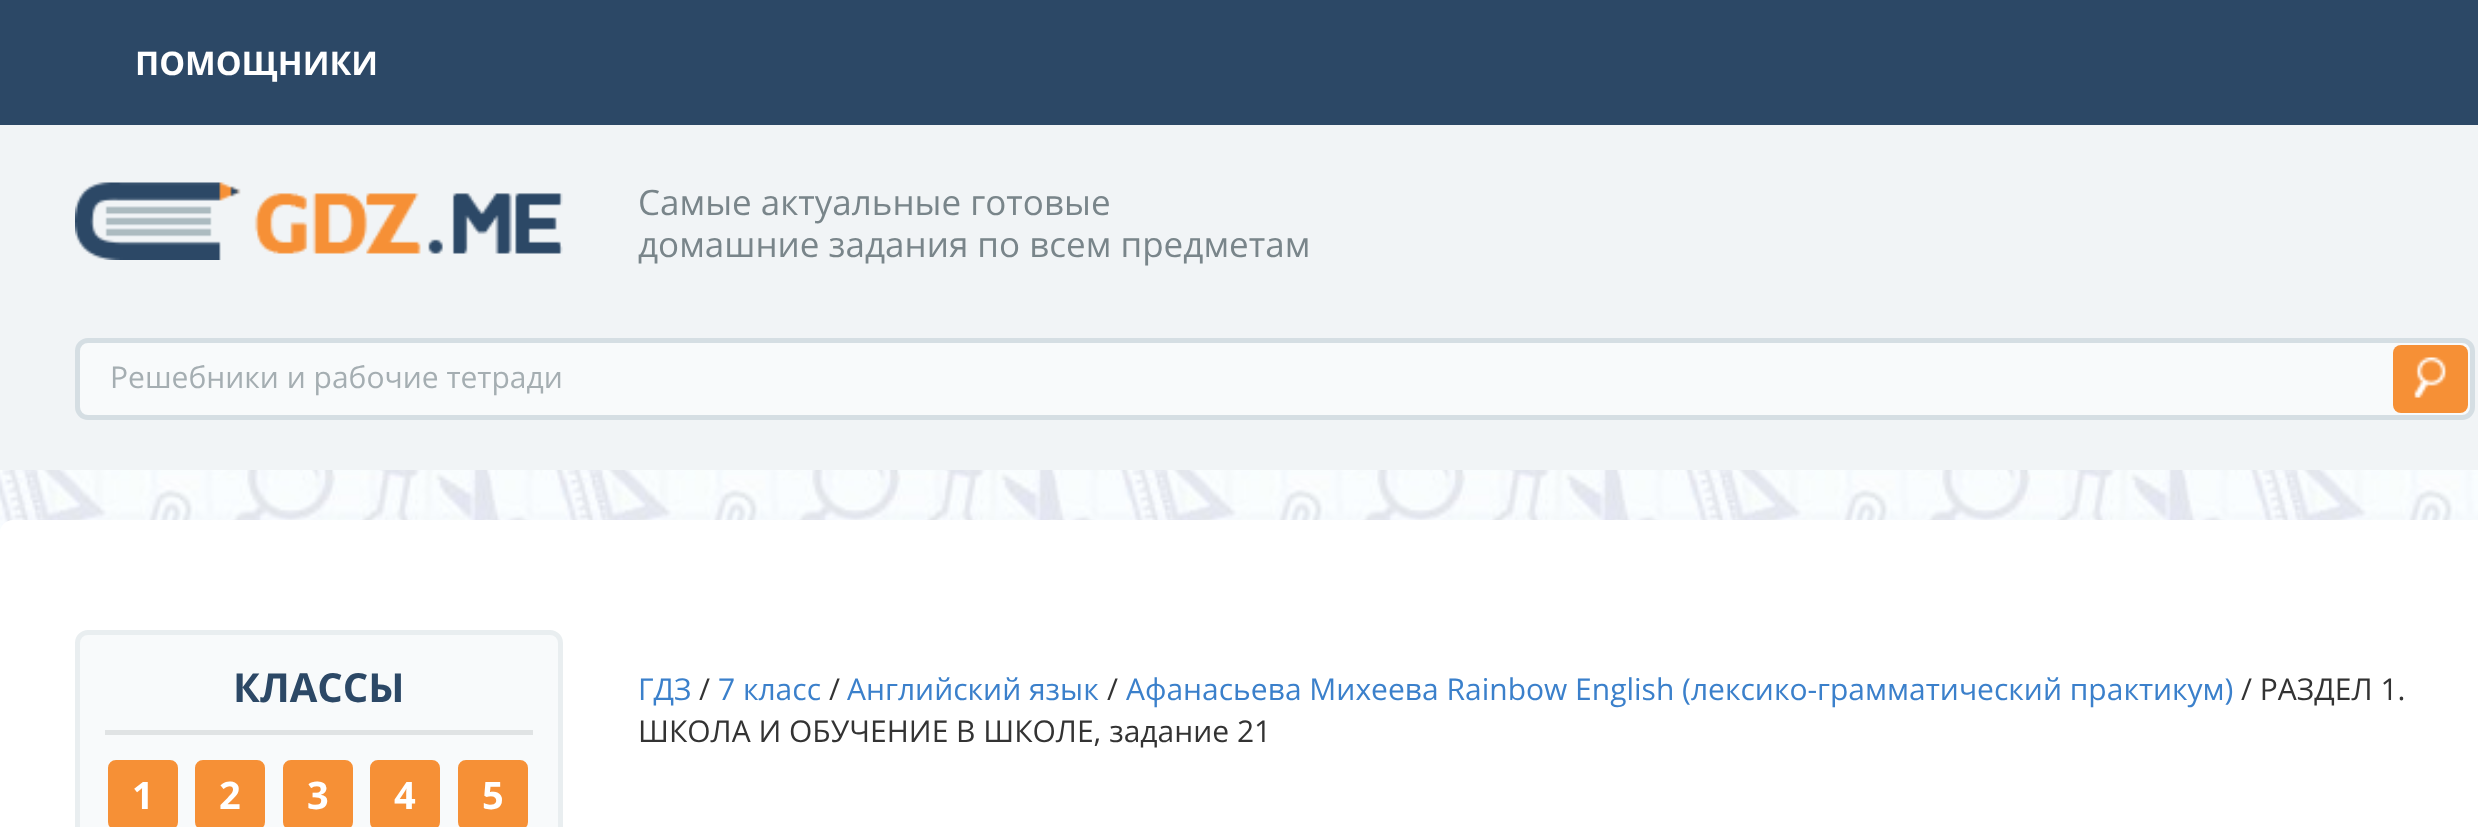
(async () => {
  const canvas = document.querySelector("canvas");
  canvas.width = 2478;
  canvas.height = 827;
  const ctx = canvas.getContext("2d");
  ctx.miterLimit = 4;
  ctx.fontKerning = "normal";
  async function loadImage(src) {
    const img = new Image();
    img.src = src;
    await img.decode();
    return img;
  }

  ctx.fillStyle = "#ffffff";
  ctx.fillRect(0, 0, 2478, 827);
  ctx.drawImage(await loadImage("img/1.png"), 0, 470, 2478, 63);
  ctx.fillStyle = "#2c4866";
  ctx.fillRect(0, 0, 2478, 125);
  ctx.fillStyle = "#f1f4f6";
  ctx.fillRect(0, 125, 2478, 345);
  ctx.drawImage(await loadImage("img/2.png"), 75, 182, 488, 78);
  ctx.fillStyle = "#f8fafb";
  ctx.beginPath();
  ctx.roundRect(77.5, 340.5, 2395, 77, 10.5);
  ctx.fill();
  ctx.strokeStyle = "#d5dee3";
  ctx.lineWidth = 5;
  ctx.stroke();
  ctx.fillStyle = "#f69036";
  ctx.beginPath();
  ctx.roundRect(2393, 345, 75, 68, 8);
  ctx.fill();
  ctx.drawImage(await loadImage("img/3.png"), 2414, 357, 34, 41);
  ctx.fillStyle = "#ffffff";
  ctx.beginPath();
  ctx.roundRect(0, 520, 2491, 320, 13);
  ctx.fill();
  ctx.fillStyle = "#f8fafb";
  ctx.beginPath();
  ctx.roundRect(77.5, 632.5, 483, 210, 10.5);
  ctx.fill();
  ctx.strokeStyle = "#e9eef0";
  ctx.stroke();
  ctx.fillStyle = "#e0e3e4";
  ctx.fillRect(105, 730, 428, 5);
  ctx.fillStyle = "#f69036";
  ctx.beginPath();
  ctx.roundRect(110.5, 762.5, 65, 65, 5.5);
  ctx.fill();
  ctx.strokeStyle = "#f69036";
  ctx.stroke();
  ctx.beginPath();
  ctx.roundRect(197.5, 762.5, 65, 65, 5.5);
  ctx.fill();
  ctx.stroke();
  ctx.beginPath();
  ctx.roundRect(285.5, 762.5, 65, 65, 5.5);
  ctx.fill();
  ctx.stroke();
  ctx.beginPath();
  ctx.roundRect(372.5, 762.5, 65, 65, 5.5);
  ctx.fill();
  ctx.stroke();
  ctx.beginPath();
  ctx.roundRect(460.5, 762.5, 65, 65, 5.5);
  ctx.fill();
  ctx.stroke();
  ctx.font = "bold 32.5px Open Sans";
  ctx.fillStyle = "#ffffff";
  ctx.fillText("ПОМОЩНИКИ", 135, 75);
  ctx.font = "35px Open Sans";
  ctx.fillStyle = "#79858a";
  ctx.fillText("Cамые актуальные готовые", 638, 215);
  ctx.fillText("домашние задания по всем предметам", 638, 257);
  ctx.font = "30px Open Sans";
  ctx.fillStyle = "#a5aeb2";
  ctx.fillText("Решебники и рабочие тетради", 110, 388);
  ctx.font = "bold 40px Open Sans";
  ctx.fillStyle = "#2c4866";
  ctx.fillText("КЛАССЫ", 233, 702);
  ctx.font = "bold 38px Open Sans";
  ctx.fillStyle = "#ffffff";
  for (const [text, x, y] of [
    ["1", 132, 809],
    ["2", 219, 809],
    ["3", 307, 809],
    ["4", 394, 809],
    ["5", 482, 809],
  ]) {
    ctx.fillText(text, x, y);
  }
  ctx.font = "30px Open Sans";
  ctx.fillStyle = "#3b80cb";
  ctx.fillText("ГДЗ", 638, 700);
  ctx.fillStyle = "#333333";
  ctx.fillText("/", 699, 700);
  ctx.fillStyle = "#3b80cb";
  ctx.fillText("7 класс", 718, 700);
  ctx.fillStyle = "#333333";
  ctx.fillText("/", 829, 700);
  ctx.fillStyle = "#3b80cb";
  ctx.fillText("Английский язык", 847, 700);
  ctx.fillStyle = "#333333";
  ctx.fillText("/", 1107, 700);
  ctx.fillStyle = "#3b80cb";
  ctx.fillText("Афанасьева Михеева Rainbow English (лексико-грамматический практикум)", 1126, 700);
  ctx.fillStyle = "#333333";
  ctx.fillText("/ РАЗДЕЛ 1.", 2241, 700);
  ctx.fillText("ШКОЛА И ОБУЧЕНИЕ В ШКОЛЕ, задание 21", 638, 742);
})();
